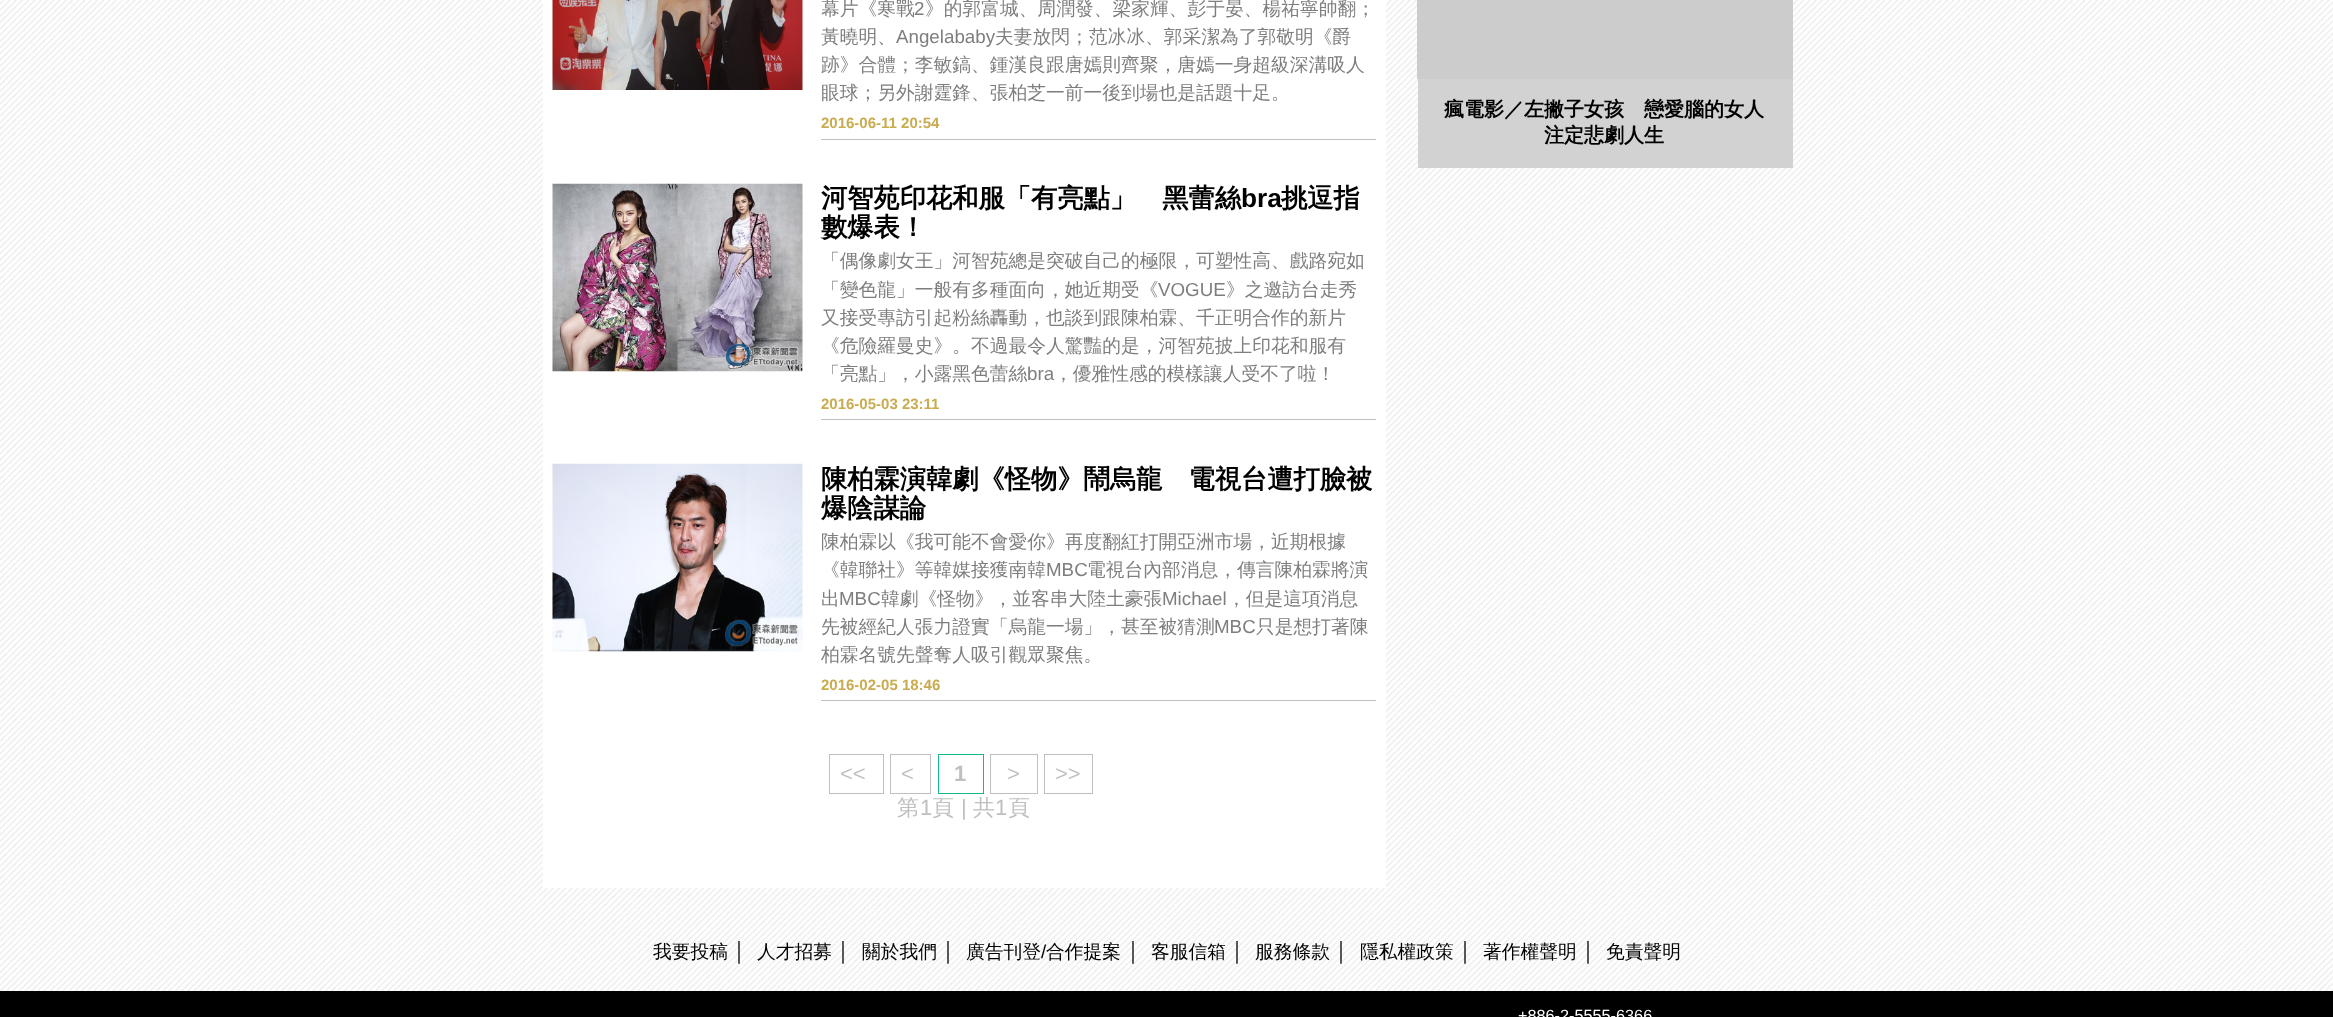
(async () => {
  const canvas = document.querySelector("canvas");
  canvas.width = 2333;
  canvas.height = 1017;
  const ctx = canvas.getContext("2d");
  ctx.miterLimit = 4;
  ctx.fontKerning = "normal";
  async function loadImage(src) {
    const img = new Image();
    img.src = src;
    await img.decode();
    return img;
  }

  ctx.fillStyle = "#ffffff";
  ctx.fillRect(0, 0, 2333, 1017);
  ctx.drawImage(await loadImage("img/1.png"), 0, 0, 2333, 991);
  ctx.fillRect(543, 0, 843, 888);
  ctx.drawImage(await loadImage("img/2.png"), 552, 0, 251, 90);
  ctx.fillStyle = "#bfbfbf";
  ctx.fillRect(821, 139, 555, 1);
  ctx.drawImage(await loadImage("img/3.png"), 552, 183, 251, 189);
  ctx.fillRect(821, 419, 555, 1);
  ctx.drawImage(await loadImage("img/4.png"), 552, 463, 251, 189);
  ctx.fillRect(821, 700, 555, 1);
  ctx.strokeStyle = "#bfbfbf";
  ctx.strokeRect(829.5, 754.5, 54, 39);
  ctx.strokeRect(890.5, 754.5, 40, 39);
  ctx.strokeStyle = "#14b889";
  ctx.strokeRect(938.5, 754.5, 45, 39);
  ctx.strokeStyle = "#bfbfbf";
  ctx.strokeRect(990.5, 754.5, 47, 39);
  ctx.strokeRect(1044.5, 754.5, 48, 39);
  for (const [x, y, w, h, color] of [
    [1417, 0, 376, 79, "#cccccc"],
    [1418, 79, 375, 89, "#d2d2d2"],
    [0, 991, 2333, 26, "#000000"],
  ]) {
    ctx.fillStyle = color;
    ctx.fillRect(x, y, w, h);
  }
  ctx.font = "500 18.75px WenQuanYi Zen Hei";
  ctx.fillStyle = "#7e7e7e";
  ctx.fillText("幕片《寒戰", 821, 15);
  ctx.font = "18.75px Liberation Sans";
  ctx.fillText("2", 914, 15);
  ctx.font = "500 18.75px WenQuanYi Zen Hei";
  ctx.fillText("》的郭富城、周潤發、梁家輝、彭于晏、楊祐寧帥翻；", 925, 15);
  ctx.fillText("黃曉明、", 821, 43);
  ctx.font = "18.75px Liberation Sans";
  ctx.fillText("Angelababy", 896, 43);
  ctx.font = "500 18.75px WenQuanYi Zen Hei";
  for (const [text, x, y] of [
    ["夫妻放閃；范冰冰、郭采潔為了郭敬明《爵", 995, 43],
    ["跡》合體；李敏鎬、鍾漢良跟唐嫣則齊聚，唐嫣一身超級深溝吸人", 821, 71],
    ["眼球；另外謝霆鋒、張柏芝一前一後到場也是話題十足。", 821, 99],
  ]) {
    ctx.fillText(text, x, y);
  }
  ctx.font = "bold 15px Liberation Sans";
  ctx.fillStyle = "#c9ab50";
  ctx.fillText("2016-06-11 20:54", 821, 128);
  ctx.font = "bold 26.25px WenQuanYi Zen Hei";
  ctx.fillStyle = "#000000";
  ctx.fillText("河智苑印花和服「有亮點」　黑蕾絲", 821, 207);
  ctx.font = "bold 26.25px Liberation Sans";
  ctx.fillText("bra", 1241, 207);
  ctx.font = "bold 26.25px WenQuanYi Zen Hei";
  ctx.fillText("挑逗指", 1281, 207);
  ctx.fillText("數爆表！", 821, 236);
  ctx.font = "500 18.75px WenQuanYi Zen Hei";
  ctx.fillStyle = "#7e7e7e";
  ctx.fillText("「偶像劇女王」河智苑總是突破自己的極限，可塑性高、戲路宛如", 821, 267);
  ctx.fillText("「變色龍」一般有多種面向，她近期受《", 821, 296);
  ctx.font = "18.75px Liberation Sans";
  ctx.fillText("VOGUE", 1158, 296);
  ctx.font = "500 18.75px WenQuanYi Zen Hei";
  for (const [text, x, y] of [
    ["》之邀訪台走秀", 1226, 296],
    ["又接受專訪引起粉絲轟動，也談到跟陳柏霖、千正明合作的新片", 821, 324],
    ["《危險羅曼史》。不過最令人驚豔的是，河智苑披上印花和服有", 821, 352],
    ["「亮點」，小露黑色蕾絲", 821, 380],
  ]) {
    ctx.fillText(text, x, y);
  }
  ctx.font = "18.75px Liberation Sans";
  ctx.fillText("bra", 1027, 380);
  ctx.font = "500 18.75px WenQuanYi Zen Hei";
  ctx.fillText("，優雅性感的模樣讓人受不了啦！", 1054, 380);
  ctx.font = "bold 15px Liberation Sans";
  ctx.fillStyle = "#c9ab50";
  ctx.fillText("2016-05-03 23:11", 821, 409);
  ctx.font = "bold 26.25px WenQuanYi Zen Hei";
  ctx.fillStyle = "#000000";
  ctx.fillText("陳柏霖演韓劇《怪物》鬧烏龍　電視台遭打臉被", 821, 488);
  ctx.fillText("爆陰謀論", 821, 517);
  ctx.font = "500 18.75px WenQuanYi Zen Hei";
  ctx.fillStyle = "#7e7e7e";
  ctx.fillText("陳柏霖以《我可能不會愛你》再度翻紅打開亞洲市場，近期根據", 821, 548);
  ctx.fillText("《韓聯社》等韓媒接獲南韓", 821, 576);
  ctx.font = "18.75px Liberation Sans";
  ctx.fillText("MBC", 1046, 576);
  ctx.font = "500 18.75px WenQuanYi Zen Hei";
  ctx.fillText("電視台內部消息，傳言陳柏霖將演", 1087, 576);
  ctx.fillText("出", 821, 605);
  ctx.font = "18.75px Liberation Sans";
  ctx.fillText("MBC", 839, 605);
  ctx.font = "500 18.75px WenQuanYi Zen Hei";
  ctx.fillText("韓劇《怪物》，並客串大陸土豪張", 881, 605);
  ctx.font = "18.75px Liberation Sans";
  ctx.fillText("Michael", 1162, 605);
  ctx.font = "500 18.75px WenQuanYi Zen Hei";
  ctx.fillText("，但是這項消息", 1227, 605);
  ctx.fillText("先被經紀人張力證實「烏龍一場」，甚至被猜測", 821, 633);
  ctx.font = "18.75px Liberation Sans";
  ctx.fillText("MBC", 1214, 633);
  ctx.font = "500 18.75px WenQuanYi Zen Hei";
  ctx.fillText("只是想打著陳", 1256, 633);
  ctx.fillText("柏霖名號先聲奪人吸引觀眾聚焦。", 821, 661);
  ctx.font = "bold 15px Liberation Sans";
  ctx.fillStyle = "#c9ab50";
  ctx.fillText("2016-02-05 18:46", 821, 690);
  ctx.font = "22px Liberation Sans";
  ctx.fillStyle = "#bfbfbf";
  ctx.fillText("<<", 840, 781);
  ctx.fillText("<", 901, 781);
  ctx.font = "bold 22px Liberation Sans";
  ctx.fillText("1", 954, 781);
  ctx.font = "22px Liberation Sans";
  ctx.fillText(">", 1007, 781);
  ctx.fillText(">>", 1055, 781);
  ctx.font = "500 22px WenQuanYi Zen Hei";
  ctx.fillText("第", 897, 815);
  ctx.font = "22px Liberation Sans";
  ctx.fillText("1", 920, 815);
  ctx.font = "500 22px WenQuanYi Zen Hei";
  ctx.fillText("頁", 932, 815);
  ctx.font = "22px Liberation Sans";
  ctx.fillText("|", 961, 815);
  ctx.font = "500 22px WenQuanYi Zen Hei";
  ctx.fillText("共", 973, 815);
  ctx.font = "22px Liberation Sans";
  ctx.fillText("1", 995, 815);
  ctx.font = "500 22px WenQuanYi Zen Hei";
  ctx.fillText("頁", 1008, 815);
  ctx.font = "bold 20px WenQuanYi Zen Hei";
  ctx.fillStyle = "#000000";
  ctx.fillText("瘋電影／左撇子女孩　戀愛腦的女人", 1444, 116);
  ctx.fillText("注定悲劇人生", 1544, 142);
  ctx.font = "500 18.75px WenQuanYi Zen Hei";
  ctx.fillText("我要投稿", 653, 958);
  ctx.font = "18.75px Liberation Sans";
  ctx.fillText("│", 734, 958);
  ctx.font = "500 18.75px WenQuanYi Zen Hei";
  ctx.fillText("人才招募", 757, 958);
  ctx.font = "18.75px Liberation Sans";
  ctx.fillText("│", 838, 958);
  ctx.font = "500 18.75px WenQuanYi Zen Hei";
  ctx.fillText("關於我們", 862, 958);
  ctx.font = "18.75px Liberation Sans";
  ctx.fillText("│", 943, 958);
  ctx.font = "500 18.75px WenQuanYi Zen Hei";
  ctx.fillText("廣告刊登", 966, 958);
  ctx.font = "18.75px Liberation Sans";
  ctx.fillText("/", 1041, 958);
  ctx.font = "500 18.75px WenQuanYi Zen Hei";
  ctx.fillText("合作提案", 1046, 958);
  ctx.font = "18.75px Liberation Sans";
  ctx.fillText("│", 1128, 958);
  ctx.font = "500 18.75px WenQuanYi Zen Hei";
  ctx.fillText("客服信箱", 1151, 958);
  ctx.font = "18.75px Liberation Sans";
  ctx.fillText("│", 1232, 958);
  ctx.font = "500 18.75px WenQuanYi Zen Hei";
  ctx.fillText("服務條款", 1255, 958);
  ctx.font = "18.75px Liberation Sans";
  ctx.fillText("│", 1336, 958);
  ctx.font = "500 18.75px WenQuanYi Zen Hei";
  ctx.fillText("隱私權政策", 1360, 958);
  ctx.font = "18.75px Liberation Sans";
  ctx.fillText("│", 1460, 958);
  ctx.font = "500 18.75px WenQuanYi Zen Hei";
  ctx.fillText("著作權聲明", 1483, 958);
  ctx.font = "18.75px Liberation Sans";
  ctx.fillText("│", 1583, 958);
  ctx.font = "500 18.75px WenQuanYi Zen Hei";
  ctx.fillText("免責聲明", 1606, 958);
  ctx.font = "16.25px Liberation Sans";
  ctx.fillStyle = "#ffffff";
  ctx.fillText("+886-2-5555-6366", 1518, 1021);
})();
